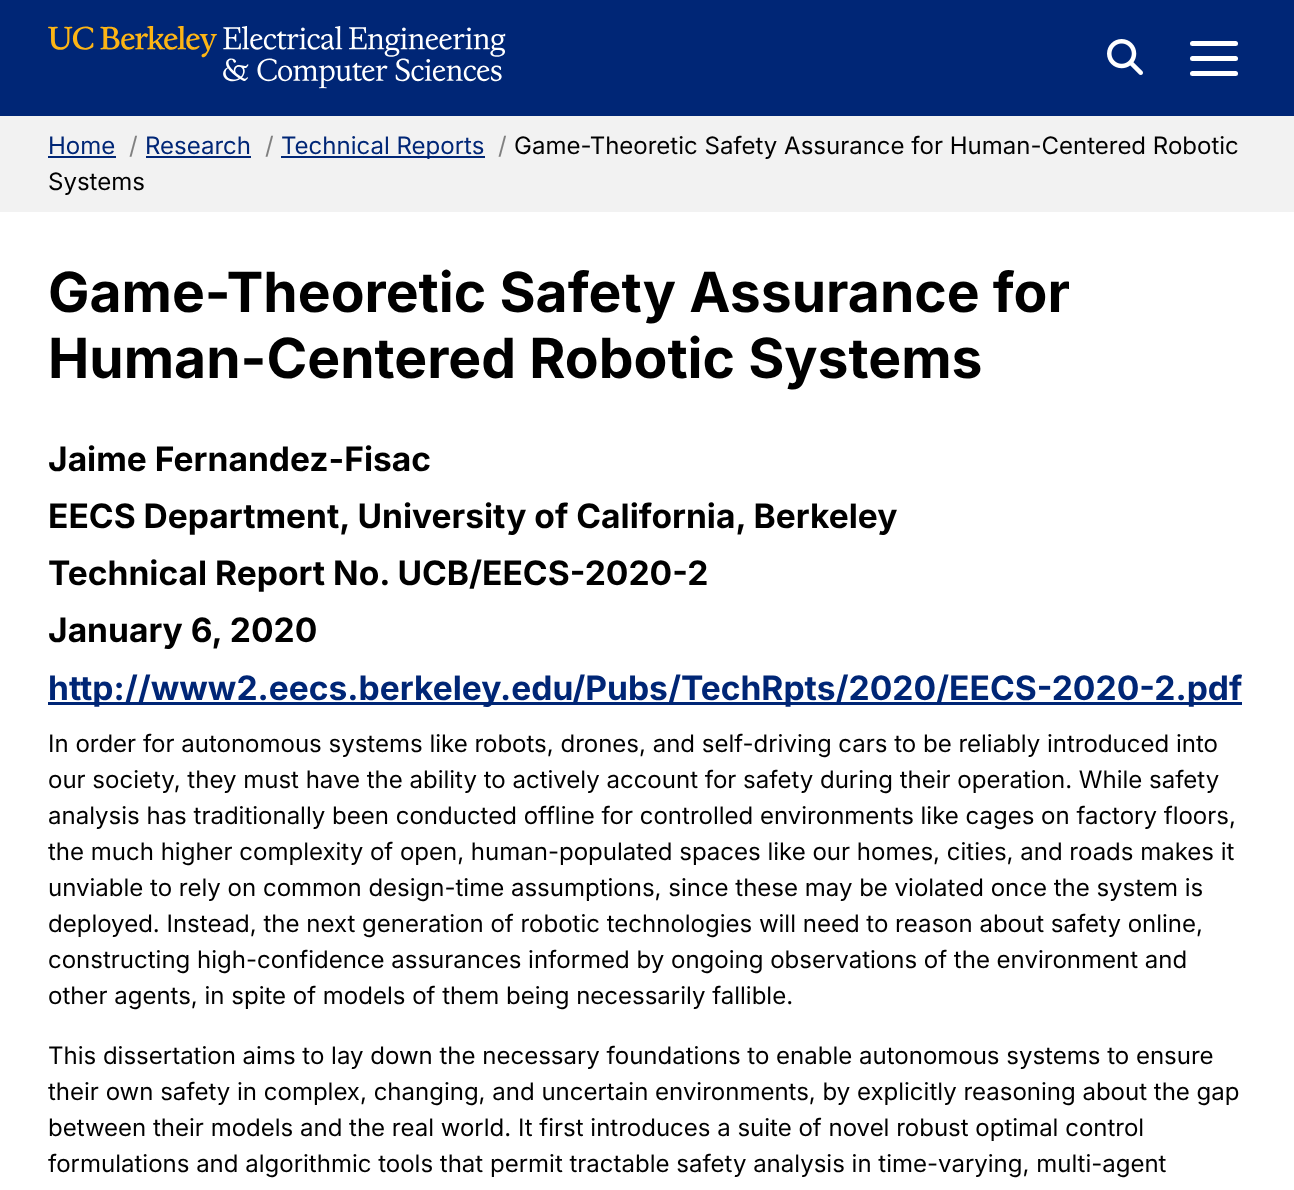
(async () => {
  const canvas = document.querySelector("canvas");
  canvas.width = 1294;
  canvas.height = 1190;
  const ctx = canvas.getContext("2d");
  ctx.miterLimit = 4;
  ctx.fontKerning = "normal";
  async function loadImage(src) {
    const img = new Image();
    img.src = src;
    await img.decode();
    return img;
  }

  ctx.fillStyle = "#ffffff";
  ctx.fillRect(0, 0, 1294, 1190);
  ctx.fillStyle = "#002676";
  ctx.fillRect(0, 0, 1294, 116);
  ctx.drawImage(await loadImage("img/1.png"), 48, 26, 458, 63);
  ctx.drawImage(await loadImage("img/2.png"), 1107, 39, 36, 36);
  ctx.fillStyle = "#ffffff";
  ctx.beginPath();
  ctx.roundRect(1190, 41, 48, 5, 2.5);
  ctx.fill();
  ctx.beginPath();
  ctx.roundRect(1190, 56, 48, 5, 2.5);
  ctx.fill();
  ctx.beginPath();
  ctx.roundRect(1190, 71, 48, 5, 2.5);
  ctx.fill();
  for (const [x, y, w, h, color] of [
    [0, 116, 1294, 96, "#f2f2f2"],
    [48, 156, 68, 2, "#002676"],
    [146, 156, 105, 2, "#002676"],
    [281, 156, 204, 2, "#002676"],
    [48, 702, 1194, 3, "#002676"],
  ]) {
    ctx.fillStyle = color;
    ctx.fillRect(x, y, w, h);
  }
  ctx.font = "24px Inter";
  ctx.fillText("Home", 48, 154);
  ctx.fillStyle = "#808080";
  ctx.fillText("/", 129, 154);
  ctx.fillStyle = "#002676";
  ctx.fillText("Research", 145, 154);
  ctx.fillStyle = "#808080";
  ctx.fillText("/", 265, 154);
  ctx.fillStyle = "#002676";
  ctx.fillText("Technical Reports", 281, 154);
  ctx.fillStyle = "#808080";
  ctx.fillText("/", 498, 154);
  ctx.fillStyle = "#000000";
  ctx.fillText("Game-Theoretic Safety Assurance for Human-Centered Robotic", 514, 154);
  ctx.fillText("Systems", 48, 190);
  ctx.font = "bold 55.25px Inter";
  ctx.fillText("Game-Theoretic Safety Assurance for", 48, 312);
  ctx.fillText("Human-Centered Robotic Systems", 48, 378);
  ctx.font = "bold 33.6px Inter";
  for (const [text, x, y] of [
    ["Jaime Fernandez-Fisac", 48, 471],
    ["EECS Department, University of California, Berkeley", 48, 528],
    ["Technical Report No. UCB/EECS-2020-2", 48, 585],
    ["January 6, 2020", 48, 642],
  ]) {
    ctx.fillText(text, x, y);
  }
  ctx.fillStyle = "#002676";
  ctx.fillText("http://www2.eecs.berkeley.edu/Pubs/TechRpts/2020/EECS-2020-2.pdf", 48, 700);
  ctx.font = "24px Inter";
  ctx.fillStyle = "#000000";
  for (const [text, x, y] of [
    ["In order for autonomous systems like robots, drones, and self-driving cars to be reliably introduced into", 48, 752],
    ["our society, they must have the ability to actively account for safety during their operation. While safety", 48, 788],
    ["analysis has traditionally been conducted offline for controlled environments like cages on factory floors,", 48, 824],
    ["the much higher complexity of open, human-populated spaces like our homes, cities, and roads makes it", 48, 860],
    ["unviable to rely on common design-time assumptions, since these may be violated once the system is", 48, 896],
    ["deployed. Instead, the next generation of robotic technologies will need to reason about safety online,", 48, 932],
    ["constructing high-confidence assurances informed by ongoing observations of the environment and", 48, 968],
    ["other agents, in spite of models of them being necessarily fallible.", 48, 1004],
    ["This dissertation aims to lay down the necessary foundations to enable autonomous systems to ensure", 48, 1064],
    ["their own safety in complex, changing, and uncertain environments, by explicitly reasoning about the gap", 48, 1100],
    ["between their models and the real world. It first introduces a suite of novel robust optimal control", 48, 1136],
    ["formulations and algorithmic tools that permit tractable safety analysis in time-varying, multi-agent", 48, 1172],
  ]) {
    ctx.fillText(text, x, y);
  }
})();
